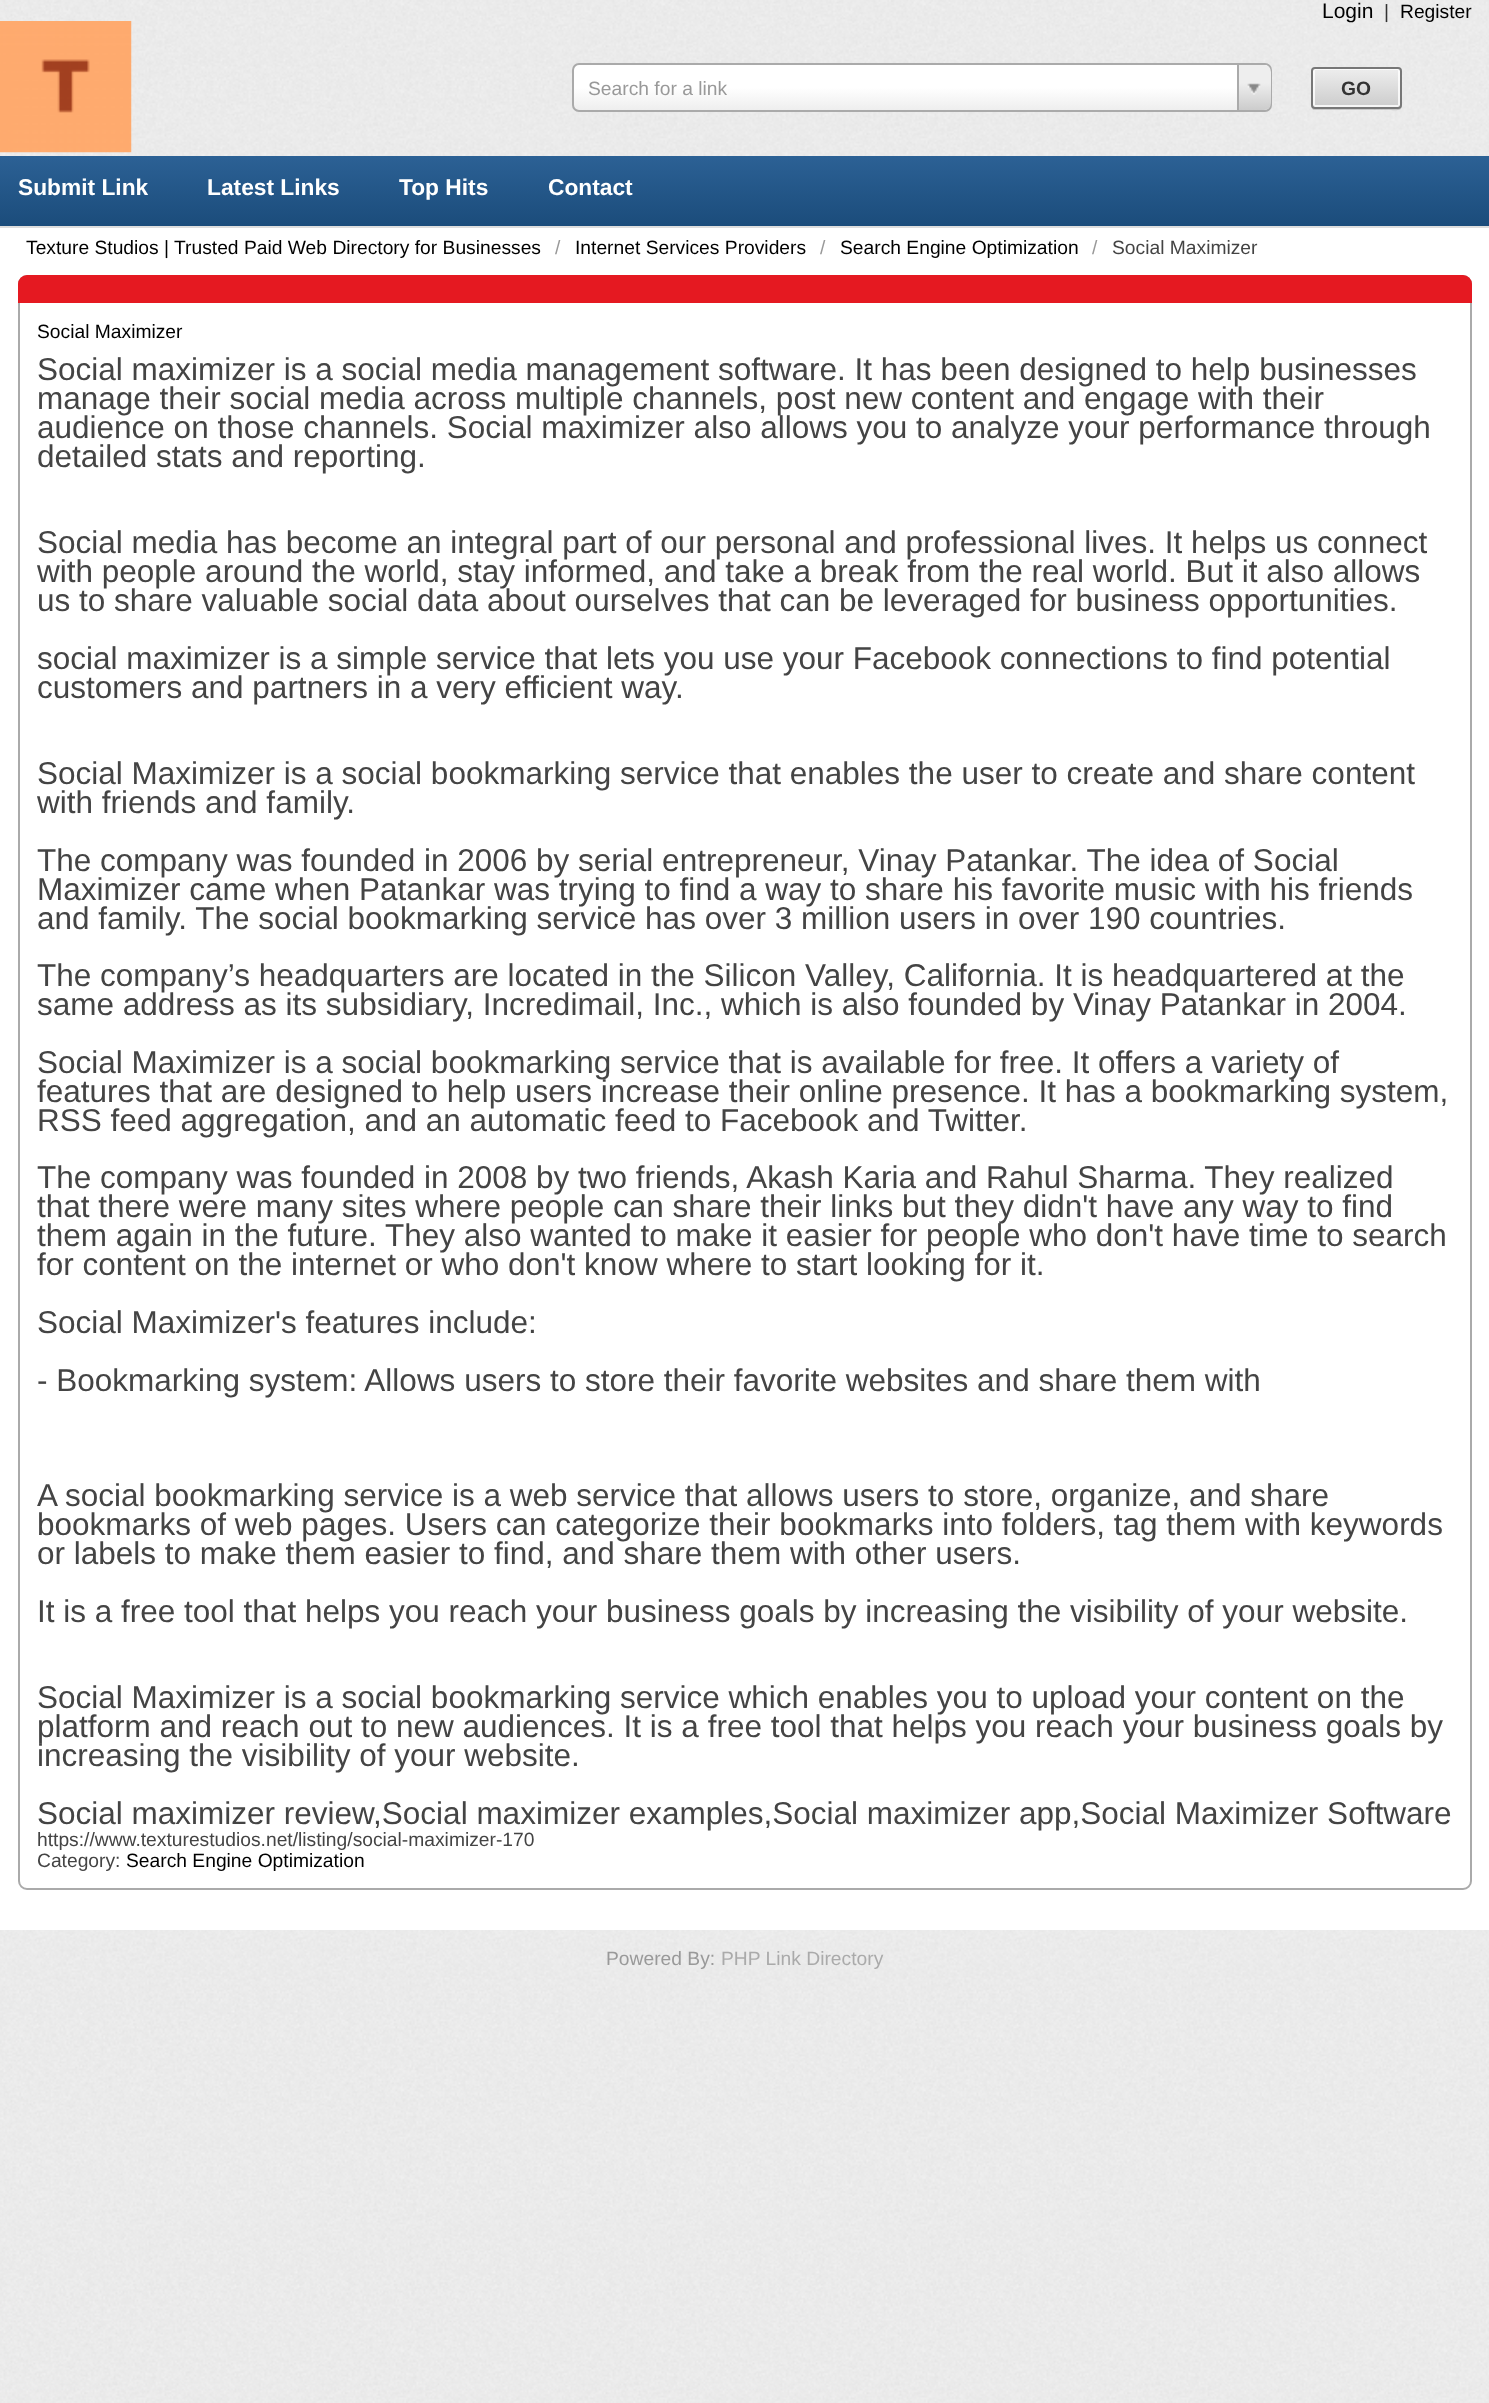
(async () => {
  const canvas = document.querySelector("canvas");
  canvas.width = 1489;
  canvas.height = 2403;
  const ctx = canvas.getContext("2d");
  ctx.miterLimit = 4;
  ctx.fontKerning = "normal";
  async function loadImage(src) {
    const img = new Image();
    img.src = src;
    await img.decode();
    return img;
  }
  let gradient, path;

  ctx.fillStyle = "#ffffff";
  ctx.fillRect(0, 0, 1489, 2403);
  ctx.drawImage(await loadImage("img/1.png"), 0, 0, 1489, 2403);
  ctx.drawImage(await loadImage("img/2.png"), 0, 21, 132, 132);
  gradient = ctx.createLinearGradient(574, 110, 574, 65);
  gradient.addColorStop(0, "#eeeeee");
  gradient.addColorStop(0.5, "#ffffff");
  ctx.fillStyle = gradient;
  ctx.beginPath();
  ctx.roundRect(574, 65, 697, 45, 5);
  ctx.fill();
  ctx.beginPath();
  ctx.roundRect(573, 64, 698, 47, 6);
  ctx.strokeStyle = "#aaaaaa";
  ctx.lineWidth = 2;
  ctx.stroke();
  gradient = ctx.createLinearGradient(1239, 110, 1239, 65);
  gradient.addColorStop(0, "#cccccc");
  gradient.addColorStop(0.6, "#eeeeee");
  ctx.fillStyle = gradient;
  ctx.beginPath();
  ctx.roundRect(1237, 65, 34, 45, [0, 7, 7, 0]);
  ctx.fill();
  ctx.fillStyle = "#aaaaaa";
  ctx.fillRect(1237, 65, 2, 45);
  ctx.drawImage(await loadImage("img/3.png"), 1247, 83, 14, 12);
  ctx.fillStyle = "rgba(0, 0, 0, 0.15)";
  path = new Path2D("M1311 106L1312 108L1313 110H1384C1404 110 1402 113 1402 95V71V105C1402 107 1400 108 1398 108H1315C1313 108 1312 107 1311 106Z");
  ctx.fill(path);
  ctx.save();
  ctx.beginPath();
  ctx.roundRect(1311, 67, 91, 42, 4);
  ctx.clip();
  gradient = ctx.createLinearGradient(1356, 68, 1356, 107);
  gradient.addColorStop(0, "#eeeeee");
  gradient.addColorStop(1, "#cccccc");
  ctx.fillStyle = gradient;
  ctx.fillRect(1311, 68, 91, 39);
  ctx.restore();
  ctx.beginPath();
  ctx.roundRect(1314, 69, 85, 37, 1);
  ctx.strokeStyle = "rgba(255, 255, 255, 0.8)";
  ctx.stroke();
  ctx.beginPath();
  ctx.roundRect(1312, 68, 89, 40, 3);
  ctx.strokeStyle = "#777777";
  ctx.stroke();
  gradient = ctx.createLinearGradient(745, 156, 745, 226);
  gradient.addColorStop(0, "#2c6195");
  gradient.addColorStop(1, "#1b4c7b");
  ctx.fillStyle = gradient;
  ctx.fillRect(0, 156, 1489, 70);
  ctx.fillStyle = "#ffffff";
  ctx.fillRect(0, 228, 1489, 1702);
  ctx.fillStyle = "#dddddd";
  ctx.fillRect(0, 226, 1489, 2);
  ctx.beginPath();
  ctx.roundRect(19, 276, 1452, 1613, 8);
  ctx.strokeStyle = "#aaaaaa";
  ctx.stroke();
  ctx.fillStyle = "#e51921";
  ctx.beginPath();
  ctx.roundRect(18, 275, 1454, 28, [9, 9, 0, 0]);
  ctx.fill();
  ctx.font = "21px Liberation Sans";
  ctx.fillStyle = "#000000";
  ctx.fillText("Login", 1322, 18);
  ctx.font = "19.25px Liberation Sans";
  ctx.fillStyle = "#333333";
  ctx.fillText("|", 1384, 18);
  ctx.fillStyle = "#000000";
  ctx.fillText("Register", 1400, 18);
  ctx.fillStyle = "#999999";
  ctx.fillText("Search for a link", 588, 95);
  ctx.font = "bold 19.25px Liberation Sans";
  ctx.fillStyle = "#333333";
  ctx.fillText("GO", 1341, 95);
  ctx.font = "bold 22.75px Liberation Sans";
  ctx.fillStyle = "#ffffff";
  for (const [text, x, y] of [
    ["Submit Link", 18, 195],
    ["Latest Links", 207, 195],
    ["Top Hits", 399, 195],
    ["Contact", 548, 195],
  ]) {
    ctx.fillText(text, x, y);
  }
  ctx.font = "19.25px Liberation Sans";
  ctx.fillStyle = "#000000";
  ctx.fillText("Texture Studios | Trusted Paid Web Directory for Businesses", 26, 254);
  ctx.fillStyle = "#999999";
  ctx.fillText("/", 555, 254);
  ctx.fillStyle = "#000000";
  ctx.fillText("Internet Services Providers", 575, 254);
  ctx.fillStyle = "#999999";
  ctx.fillText("/", 820, 254);
  ctx.fillStyle = "#000000";
  ctx.fillText("Search Engine Optimization", 840, 254);
  ctx.fillStyle = "#999999";
  ctx.fillText("/", 1092, 254);
  ctx.fillStyle = "#444444";
  ctx.fillText("Social Maximizer", 1112, 254);
  ctx.fillStyle = "#000000";
  ctx.fillText("Social Maximizer", 37, 338);
  ctx.font = "31.5px Liberation Sans";
  ctx.fillStyle = "#444444";
  for (const [text, x, y] of [
    ["Social maximizer is a social media management software. It has been designed to help businesses", 37, 380],
    ["manage their social media across multiple channels, post new content and engage with their", 37, 409],
    ["audience on those channels. Social maximizer also allows you to analyze your performance through", 37, 438],
    ["detailed stats and reporting.", 37, 467],
    ["Social media has become an integral part of our personal and professional lives. It helps us connect", 37, 553],
    ["with people around the world, stay informed, and take a break from the real world. But it also allows", 37, 582],
    ["us to share valuable social data about ourselves that can be leveraged for business opportunities.", 37, 611],
    ["social maximizer is a simple service that lets you use your Facebook connections to find potential", 37, 669],
    ["customers and partners in a very efficient way.", 37, 698],
    ["Social Maximizer is a social bookmarking service that enables the user to create and share content", 37, 784],
    ["with friends and family.", 37, 813],
    ["The company was founded in 2006 by serial entrepreneur, Vinay Patankar. The idea of Social", 37, 871],
    ["Maximizer came when Patankar was trying to find a way to share his favorite music with his friends", 37, 900],
    ["and family. The social bookmarking service has over 3 million users in over 190 countries.", 37, 929],
    ["The company’s headquarters are located in the Silicon Valley, California. It is headquartered at the", 37, 986],
    ["same address as its subsidiary, Incredimail, Inc., which is also founded by Vinay Patankar in 2004.", 37, 1015],
    ["Social Maximizer is a social bookmarking service that is available for free. It offers a variety of", 37, 1073],
    ["features that are designed to help users increase their online presence. It has a bookmarking system,", 37, 1102],
    ["RSS feed aggregation, and an automatic feed to Facebook and Twitter.", 37, 1131],
    ["The company was founded in 2008 by two friends, Akash Karia and Rahul Sharma. They realized", 37, 1188],
    ["that there were many sites where people can share their links but they didn't have any way to find", 37, 1217],
    ["them again in the future. They also wanted to make it easier for people who don't have time to search", 37, 1246],
    ["for content on the internet or who don't know where to start looking for it.", 37, 1275],
    ["Social Maximizer's features include:", 37, 1333],
    ["- Bookmarking system: Allows users to store their favorite websites and share them with", 37, 1391],
    ["A social bookmarking service is a web service that allows users to store, organize, and share", 37, 1506],
    ["bookmarks of web pages. Users can categorize their bookmarks into folders, tag them with keywords", 37, 1535],
    ["or labels to make them easier to find, and share them with other users.", 37, 1564],
    ["It is a free tool that helps you reach your business goals by increasing the visibility of your website.", 37, 1622],
    ["Social Maximizer is a social bookmarking service which enables you to upload your content on the", 37, 1708],
    ["platform and reach out to new audiences. It is a free tool that helps you reach your business goals by", 37, 1737],
    ["increasing the visibility of your website.", 37, 1766],
    ["Social maximizer review,Social maximizer examples,Social maximizer app,Social Maximizer Software", 37, 1824],
  ]) {
    ctx.fillText(text, x, y);
  }
  ctx.font = "19.25px Liberation Sans";
  ctx.fillText("https://www.texturestudios.net/listing/social-maximizer-170", 37, 1846);
  ctx.fillText("Category:", 37, 1867);
  ctx.fillStyle = "#000000";
  ctx.fillText("Search Engine Optimization", 126, 1867);
  ctx.fillStyle = "#999999";
  ctx.fillText("Powered By:", 606, 1965);
  ctx.fillStyle = "#aaaaaa";
  ctx.fillText("PHP Link Directory", 721, 1965);
})();
